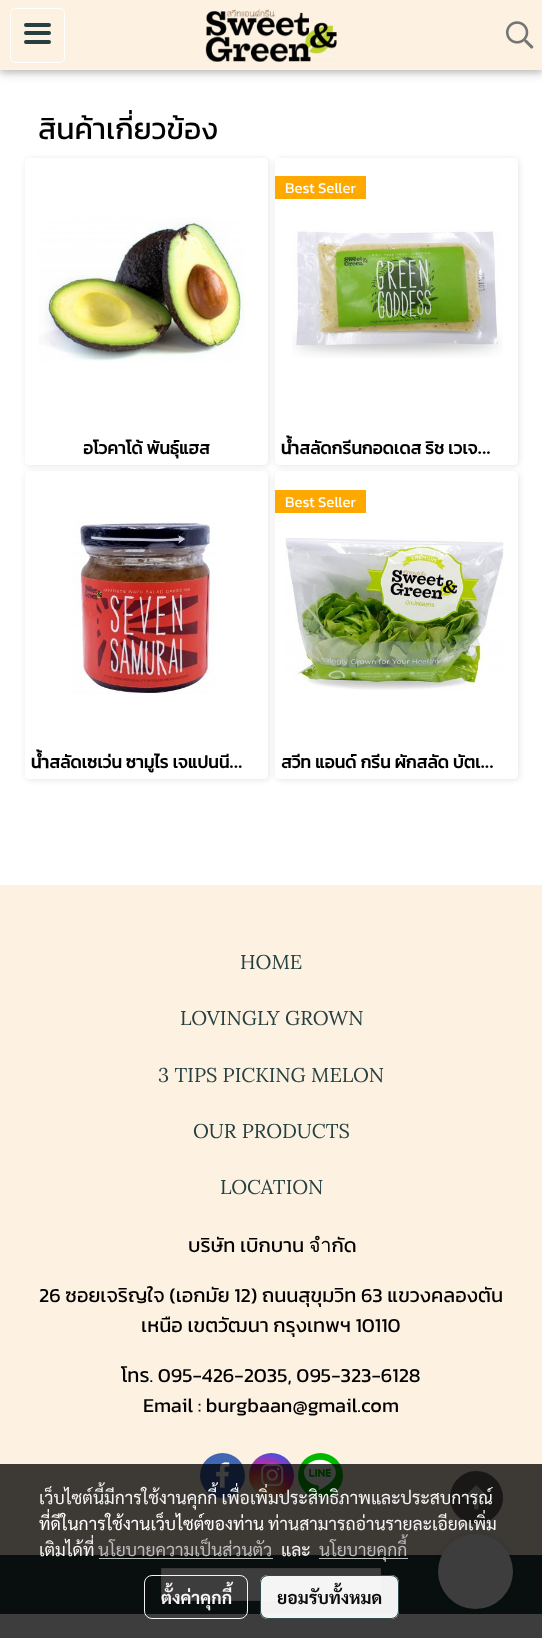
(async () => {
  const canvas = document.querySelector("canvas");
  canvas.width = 542;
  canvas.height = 1638;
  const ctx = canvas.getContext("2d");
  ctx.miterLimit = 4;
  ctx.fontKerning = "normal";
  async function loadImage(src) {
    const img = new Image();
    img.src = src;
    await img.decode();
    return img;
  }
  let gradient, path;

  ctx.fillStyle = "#ffffff";
  ctx.fillRect(0, 0, 542, 1638);
  ctx.fillStyle = "rgba(0, 0, 0, 0.12)";
  ctx.filter = "blur(6px)";
  ctx.beginPath();
  ctx.rect(0, 3, 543, 70);
  ctx.fill();
  ctx.filter = "none";
  ctx.fillStyle = "rgba(0, 0, 0, 0.16)";
  ctx.filter = "blur(3px)";
  ctx.beginPath();
  ctx.rect(0, 3, 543, 70);
  ctx.fill();
  ctx.filter = "none";
  ctx.fillStyle = "#fdf2e2";
  ctx.fillRect(0, 0, 542, 70);
  ctx.beginPath();
  ctx.roundRect(10.5, 8.5, 54, 54, 4.5);
  ctx.strokeStyle = "#ffffff";
  ctx.stroke();
  ctx.fillStyle = "#264041";
  ctx.beginPath();
  ctx.roundRect(24, 31, 27, 4, 2);
  ctx.fill();
  ctx.beginPath();
  ctx.roundRect(24, 23, 27, 4, 2);
  ctx.fill();
  ctx.beginPath();
  ctx.roundRect(24, 40, 27, 4, 2);
  ctx.fill();
  ctx.drawImage(await loadImage("img/1.png"), 205, 9, 132, 53);
  ctx.drawImage(await loadImage("img/2.png"), 505, 21, 29, 28);
  ctx.save();
  path = new Path2D("M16 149H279V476H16ZM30 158H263C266 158 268 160 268 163V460C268 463 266 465 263 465H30C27 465 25 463 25 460V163C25 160 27 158 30 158Z");
  ctx.clip(path, "evenodd");
  ctx.fillStyle = "rgba(0, 0, 0, 0.1)";
  ctx.filter = "blur(3px)";
  ctx.beginPath();
  ctx.roundRect(26, 159, 243, 307, 5);
  ctx.fill();
  ctx.filter = "none";
  ctx.restore();
  ctx.drawImage(await loadImage("img/3.png"), 38, 217, 207, 145);
  ctx.save();
  path = new Path2D("M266 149H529V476H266ZM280 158H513C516 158 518 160 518 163V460C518 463 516 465 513 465H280C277 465 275 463 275 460V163C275 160 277 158 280 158Z");
  ctx.clip(path, "evenodd");
  ctx.fillStyle = "rgba(0, 0, 0, 0.1)";
  ctx.filter = "blur(3px)";
  ctx.beginPath();
  ctx.roundRect(276, 159, 243, 307, 5);
  ctx.fill();
  ctx.filter = "none";
  ctx.restore();
  ctx.fillStyle = "#ffa800";
  ctx.fillRect(275, 176, 91, 23);
  ctx.drawImage(await loadImage("img/4.png"), 292, 229, 211, 129);
  ctx.save();
  path = new Path2D("M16 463H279V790H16ZM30 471H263C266 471 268 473 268 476V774C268 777 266 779 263 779H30C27 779 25 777 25 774V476C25 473 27 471 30 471Z");
  ctx.clip(path, "evenodd");
  ctx.fillStyle = "rgba(0, 0, 0, 0.1)";
  ctx.filter = "blur(3px)";
  ctx.beginPath();
  ctx.roundRect(26, 473, 243, 307, 5);
  ctx.fill();
  ctx.filter = "none";
  ctx.restore();
  ctx.drawImage(await loadImage("img/5.png"), 72, 519, 143, 175);
  ctx.save();
  path = new Path2D("M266 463H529V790H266ZM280 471H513C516 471 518 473 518 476V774C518 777 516 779 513 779H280C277 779 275 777 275 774V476C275 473 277 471 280 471Z");
  ctx.clip(path, "evenodd");
  ctx.fillStyle = "rgba(0, 0, 0, 0.1)";
  ctx.filter = "blur(3px)";
  ctx.beginPath();
  ctx.roundRect(276, 473, 243, 307, 5);
  ctx.fill();
  ctx.filter = "none";
  ctx.restore();
  ctx.fillRect(275, 490, 91, 23);
  ctx.drawImage(await loadImage("img/6.png"), 285, 538, 219, 152);
  ctx.fillStyle = "#fdf2e2";
  ctx.fillRect(0, 885, 542, 670);
  ctx.fillStyle = "#4267b2";
  ctx.beginPath();
  ctx.arc(222.5, 1475.5, 22.5, 0, Math.PI * 2);
  ctx.fill();
  ctx.drawImage(await loadImage("img/7.png"), 216, 1462, 14, 26);
  gradient = ctx.createRadialGradient(262, 1501, 0, 262, 1501, 58);
  gradient.addColorStop(0, "#fdf497");
  gradient.addColorStop(0.05, "#fdf497");
  gradient.addColorStop(0.45, "#fd5949");
  gradient.addColorStop(0.6, "#d6249f");
  gradient.addColorStop(0.9, "#285aeb");
  ctx.fillStyle = gradient;
  ctx.beginPath();
  ctx.arc(271.5, 1475.5, 22.5, 0, Math.PI * 2);
  ctx.fill();
  ctx.drawImage(await loadImage("img/8.png"), 261, 1463, 23, 24);
  ctx.fillStyle = "#00b800";
  ctx.beginPath();
  ctx.arc(320.5, 1475.5, 22.5, 0, Math.PI * 2);
  ctx.fill();
  ctx.drawImage(await loadImage("img/9.png"), 298, 1459, 44, 38);
  ctx.fillStyle = "#264041";
  ctx.fillRect(0, 1555, 542, 59);
  ctx.fillStyle = "#ffffff";
  ctx.beginPath();
  ctx.rect(161.5, 1568.5, 219, 32);
  ctx.fill();
  ctx.strokeStyle = "#e5e5e5";
  ctx.stroke();
  ctx.fillStyle = "rgba(0, 0, 0, 0.14)";
  ctx.filter = "blur(4.5px)";
  ctx.beginPath();
  ctx.roundRect(438, 1534, 75, 75, 37.5);
  ctx.fill();
  ctx.filter = "none";
  ctx.fillStyle = "#6a6661";
  path = new Path2D("M476 1471C462 1471 450 1483 450 1498C450 1512 462 1524 476 1524C491 1524 503 1512 503 1498C503 1483 491 1471 476 1471Z");
  ctx.fill(path);
  ctx.drawImage(await loadImage("img/10.png"), 464, 1485, 24, 25);
  ctx.fillStyle = "#ffffff";
  ctx.beginPath();
  ctx.arc(475.5, 1571.5, 37.5, 0, Math.PI * 2);
  ctx.fill();
  for (const [x, y, w, h, color] of [
    [0, 1464, 542, 174, "rgba(0, 0, 0, 0.76)"],
    [99, 1558, 174, 1, "#babcbc"],
    [319, 1558, 89, 1, "#babcbc"],
  ]) {
    ctx.fillStyle = color;
    ctx.fillRect(x, y, w, h);
  }
  ctx.beginPath();
  ctx.roundRect(144.5, 1575.5, 103, 43, 7.5);
  ctx.strokeStyle = "rgba(255, 255, 255, 0.95)";
  ctx.stroke();
  ctx.fillStyle = "rgba(255, 255, 255, 0.95)";
  ctx.beginPath();
  ctx.roundRect(260, 1575, 139, 44, 8);
  ctx.fill();
  ctx.beginPath();
  ctx.roundRect(260.5, 1575.5, 138, 43, 7.5);
  ctx.strokeStyle = "rgba(38, 64, 65, 0.95)";
  ctx.stroke();
  ctx.font = "30px Kanit";
  ctx.fillStyle = "#000000";
  ctx.fillText("สินค้าเกี่ยวข้อง", 38, 139);
  ctx.font = "bold 17.5px Kanit";
  ctx.fillText("อโวคาโด้ พันธุ์แฮส", 83, 454);
  ctx.font = "15px Kanit";
  ctx.fillStyle = "#ffffff";
  ctx.fillText("Best Seller", 285, 193);
  ctx.save();
  ctx.beginPath();
  ctx.rect(281, 430, 230, 35);
  ctx.clip();
  ctx.font = "bold 17.5px Kanit";
  ctx.fillStyle = "#000000";
  ctx.fillText("น้ำสลัดกรีนกอดเดส ริช เวเจ...", 281, 454);
  ctx.restore();
  ctx.save();
  ctx.beginPath();
  ctx.rect(31, 744, 230, 35);
  ctx.clip();
  ctx.font = "bold 17.5px Kanit";
  ctx.fillStyle = "#000000";
  ctx.fillText("น้ำสลัดเซเว่น ซามูไร เจแปนนี...", 31, 768);
  ctx.restore();
  ctx.fillText("Best Seller", 285, 507);
  ctx.font = "bold 17.5px Kanit";
  ctx.fillStyle = "#000000";
  ctx.fillText("สวีท แอนด์ กรีน ผักสลัด บัตเ...", 281, 768);
  ctx.font = "20px Lora";
  ctx.fillStyle = "#264041";
  for (const [text, x, y] of [
    ["HOME", 240, 969],
    ["LOVINGLY GROWN", 180, 1025],
    ["3 TIPS PICKING MELON", 158, 1082],
    ["OUR PRODUCTS", 193, 1138],
    ["LOCATION", 220, 1194],
  ]) {
    ctx.fillText(text, x, y);
  }
  ctx.font = "20px Kanit";
  ctx.fillStyle = "#000000";
  for (const [text, x, y] of [
    ["บริษัท เบิกบาน จำกัด", 188, 1252],
    ["26 ซอยเจริญใจ (เอกมัย 12) ถนนสุขุมวิท 63 แขวงคลองตัน", 39, 1302],
    ["เหนือ เขตวัฒนา กรุงเทพฯ 10110", 141, 1332],
    ["โทร. 095-426-2035, 095-323-6128", 121, 1382],
    ["Email : burgbaan@gmail.com", 143, 1412],
  ]) {
    ctx.fillText(text, x, y);
  }
  ctx.font = "17.5px Sarabun";
  ctx.fillStyle = "#f5f5f5";
  ctx.fillText("เว็บไซต์นี้มีการใช้งานคุกกี้ เพื่อเพิ่มประสิทธิภาพและประสบการณ์", 39, 1504);
  ctx.fillStyle = "#ffffff";
  ctx.fillText("ที่ดีในการใช้งานเว็บไซต์ของท่าน", 39, 1530);
  ctx.fillStyle = "#f5f5f5";
  ctx.fillText("ท่านสามารถอ่านรายละเอียดเพิ่ม", 268, 1530);
  ctx.fillText("เติมได้ที่", 39, 1556);
  ctx.fillStyle = "#bbbbbb";
  ctx.fillText("นโยบายความเป็นส่วนตัว", 98, 1556);
  ctx.fillStyle = "#f5f5f5";
  ctx.fillText("และ", 281, 1556);
  ctx.fillStyle = "#bbbbbb";
  ctx.fillText("นโยบายคุกกี้", 319, 1556);
  ctx.font = "bold 17.5px Sarabun";
  ctx.fillStyle = "#f5f5f5";
  ctx.fillText("ตั้งค่าคุกกี้", 161, 1604);
  ctx.fillStyle = "#0c0c0c";
  ctx.fillText("ยอมรับทั้งหมด", 277, 1604);
})();
